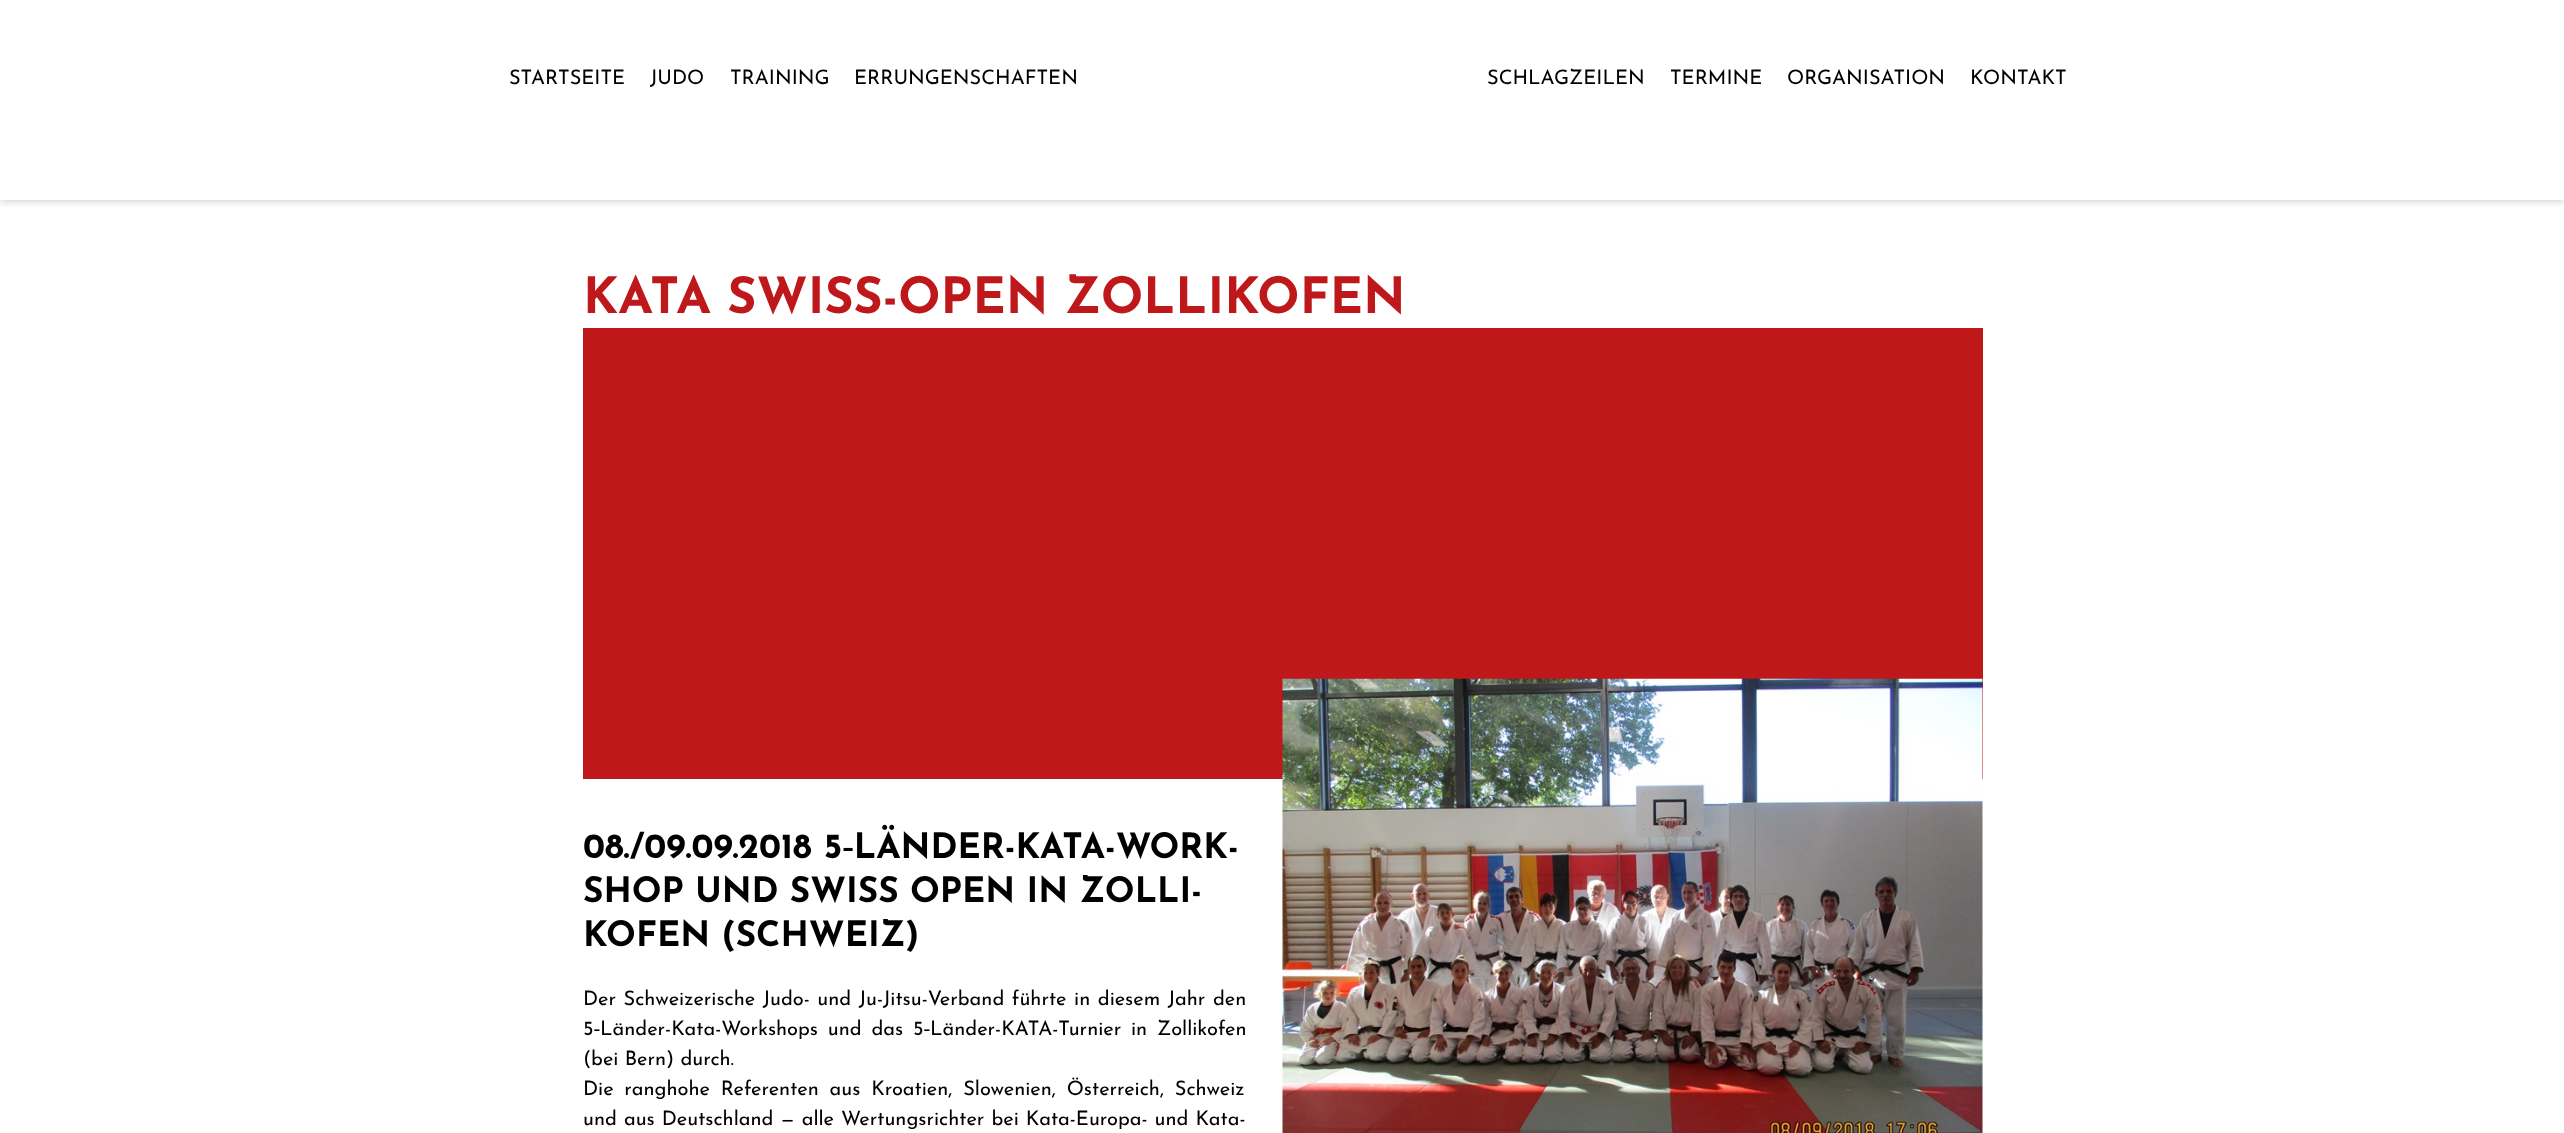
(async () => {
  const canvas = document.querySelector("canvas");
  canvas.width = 2564;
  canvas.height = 1133;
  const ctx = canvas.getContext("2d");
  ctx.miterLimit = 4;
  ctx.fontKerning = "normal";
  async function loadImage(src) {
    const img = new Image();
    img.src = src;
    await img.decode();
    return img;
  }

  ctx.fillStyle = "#ffffff";
  ctx.fillRect(0, 0, 2564, 1133);
  ctx.save();
  ctx.beginPath();
  ctx.rect(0, 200, 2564, 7);
  ctx.clip();
  ctx.fillStyle = "rgba(0, 0, 0, 0.25)";
  ctx.filter = "blur(5px)";
  ctx.beginPath();
  ctx.rect(0, 0, 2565, 200);
  ctx.fill();
  ctx.filter = "none";
  ctx.restore();
  ctx.fillStyle = "#bf181b";
  ctx.fillRect(583, 328, 1400, 451);
  ctx.drawImage(await loadImage("img/1.png"), 1282, 678, 701, 455);
  ctx.font = "20px Josefin Sans";
  ctx.fillStyle = "#000000";
  for (const [text, x, y] of [
    ["STARTSEITE", 509, 84],
    ["JUDO", 650, 84],
    ["TRAINING", 730, 84],
    ["ERRUNGENSCHAFTEN", 854, 84],
    ["SCHLAGZEILEN", 1487, 84],
    ["TERMINE", 1670, 84],
    ["ORGANISATION", 1787, 84],
    ["KONTAKT", 1970, 84],
  ]) {
    ctx.fillText(text, x, y);
  }
  ctx.font = "bold 50px Josefin Sans";
  ctx.fillStyle = "#bf181b";
  ctx.fillText("KATA SWISS-OPEN ZOLLIKOFEN", 583, 313);
  ctx.wordSpacing = "1px";
  ctx.font = "bold 35px Josefin Sans";
  ctx.fillStyle = "#000000";
  ctx.fillText("08./09.09.2018 5‑LÄNDER-KATA-WORK-", 583, 858);
  ctx.wordSpacing = "0px";
  ctx.fillText("SHOP UND SWISS OPEN IN ZOLLI-", 583, 902);
  ctx.fillText("KOFEN (SCHWEIZ)", 583, 946);
  ctx.wordSpacing = "1.25px";
  ctx.font = "20px Josefin Sans";
  ctx.fillText("Der Schweizerische Judo- und Ju-Jitsu-Verband führte in diesem Jahr den", 583, 1005);
  ctx.wordSpacing = "3.5px";
  ctx.fillText("5‑Länder-Kata-Workshops und das 5‑Länder-KATA-Turnier in Zollikofen", 583, 1035);
  ctx.wordSpacing = "0px";
  ctx.fillText("(bei Bern) durch.", 583, 1065);
  ctx.wordSpacing = "4.5px";
  ctx.fillText("Die ranghohe Referenten aus Kroatien, Slowenien, Österreich, Schweiz", 583, 1095);
  ctx.wordSpacing = "0.75px";
  ctx.fillText("und aus Deutschland — alle Wertungsrichter bei Kata-Europa- und Kata-", 583, 1125);
})();
